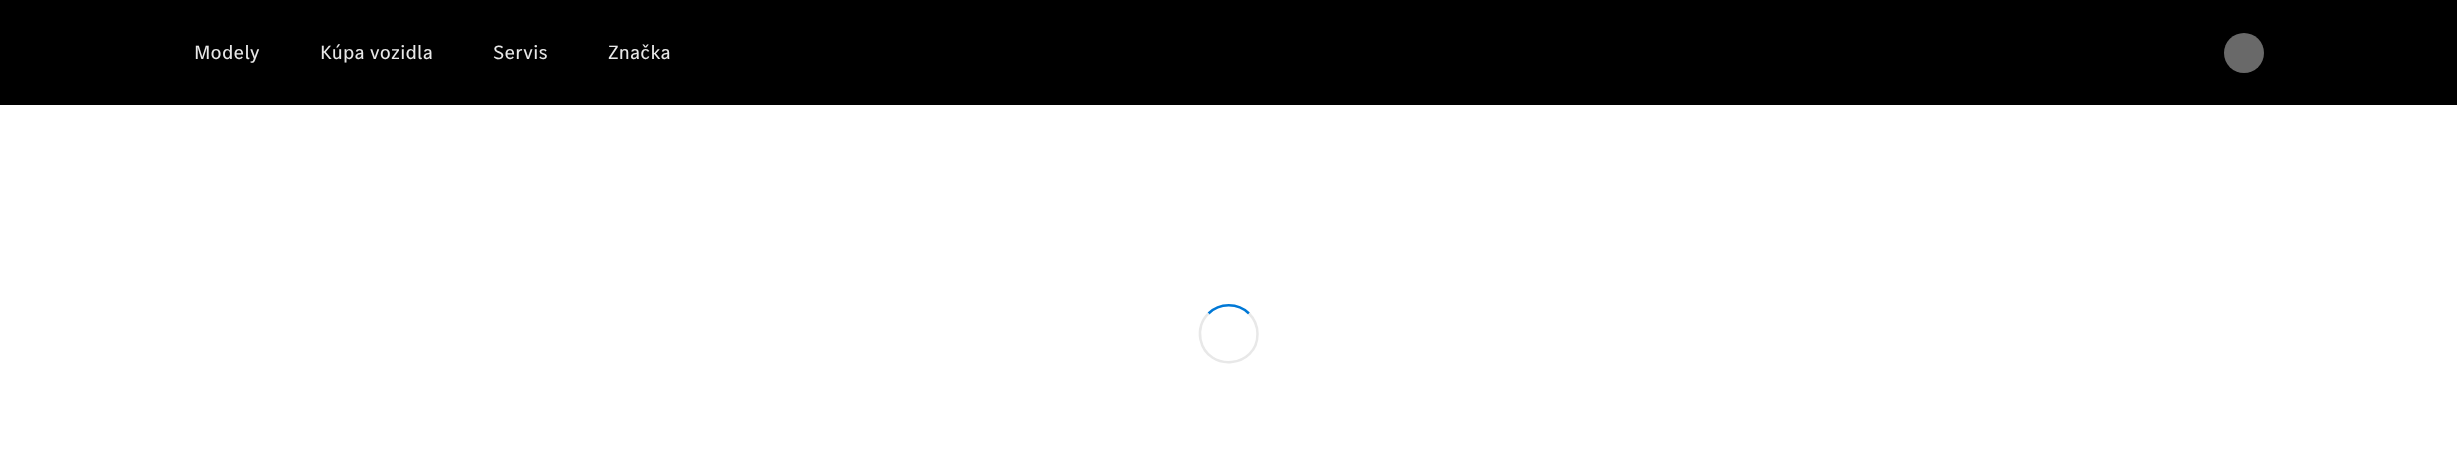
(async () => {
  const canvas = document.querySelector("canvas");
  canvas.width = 2457;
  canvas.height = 457;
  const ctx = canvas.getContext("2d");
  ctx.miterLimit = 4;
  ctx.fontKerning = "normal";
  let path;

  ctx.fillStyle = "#ffffff";
  ctx.fillRect(0, 0, 2457, 457);
  ctx.fillStyle = "#000000";
  ctx.fillRect(0, 0, 2457, 105);
  ctx.fillStyle = "#696969";
  ctx.beginPath();
  ctx.arc(2244, 53, 20, 0, Math.PI * 2);
  ctx.fill();
  path = new Path2D("M1208.5 313.5C1219.5 302.5 1238 302.5 1249 313.5");
  ctx.strokeStyle = "#0078d6";
  ctx.lineWidth = 2.5;
  ctx.stroke(path);
  path = new Path2D("M1249 313.5C1254.5 319 1257.5 326 1257.5 334C1257.5 368 1207.5 373 1200.5 339.5C1198.5 330 1201.5 320 1208.5 313.5");
  ctx.strokeStyle = "#e8e8e8";
  ctx.stroke(path);
  ctx.letterSpacing = "0.25px";
  ctx.font = "20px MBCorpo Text";
  ctx.fillStyle = "#e8e8e8";
  for (const [text, x, y] of [
    ["Modely", 194, 59],
    ["Kúpa vozidla", 320, 59],
    ["Servis", 493, 59],
    ["Značka", 608, 59],
  ]) {
    ctx.fillText(text, x, y);
  }
})();
